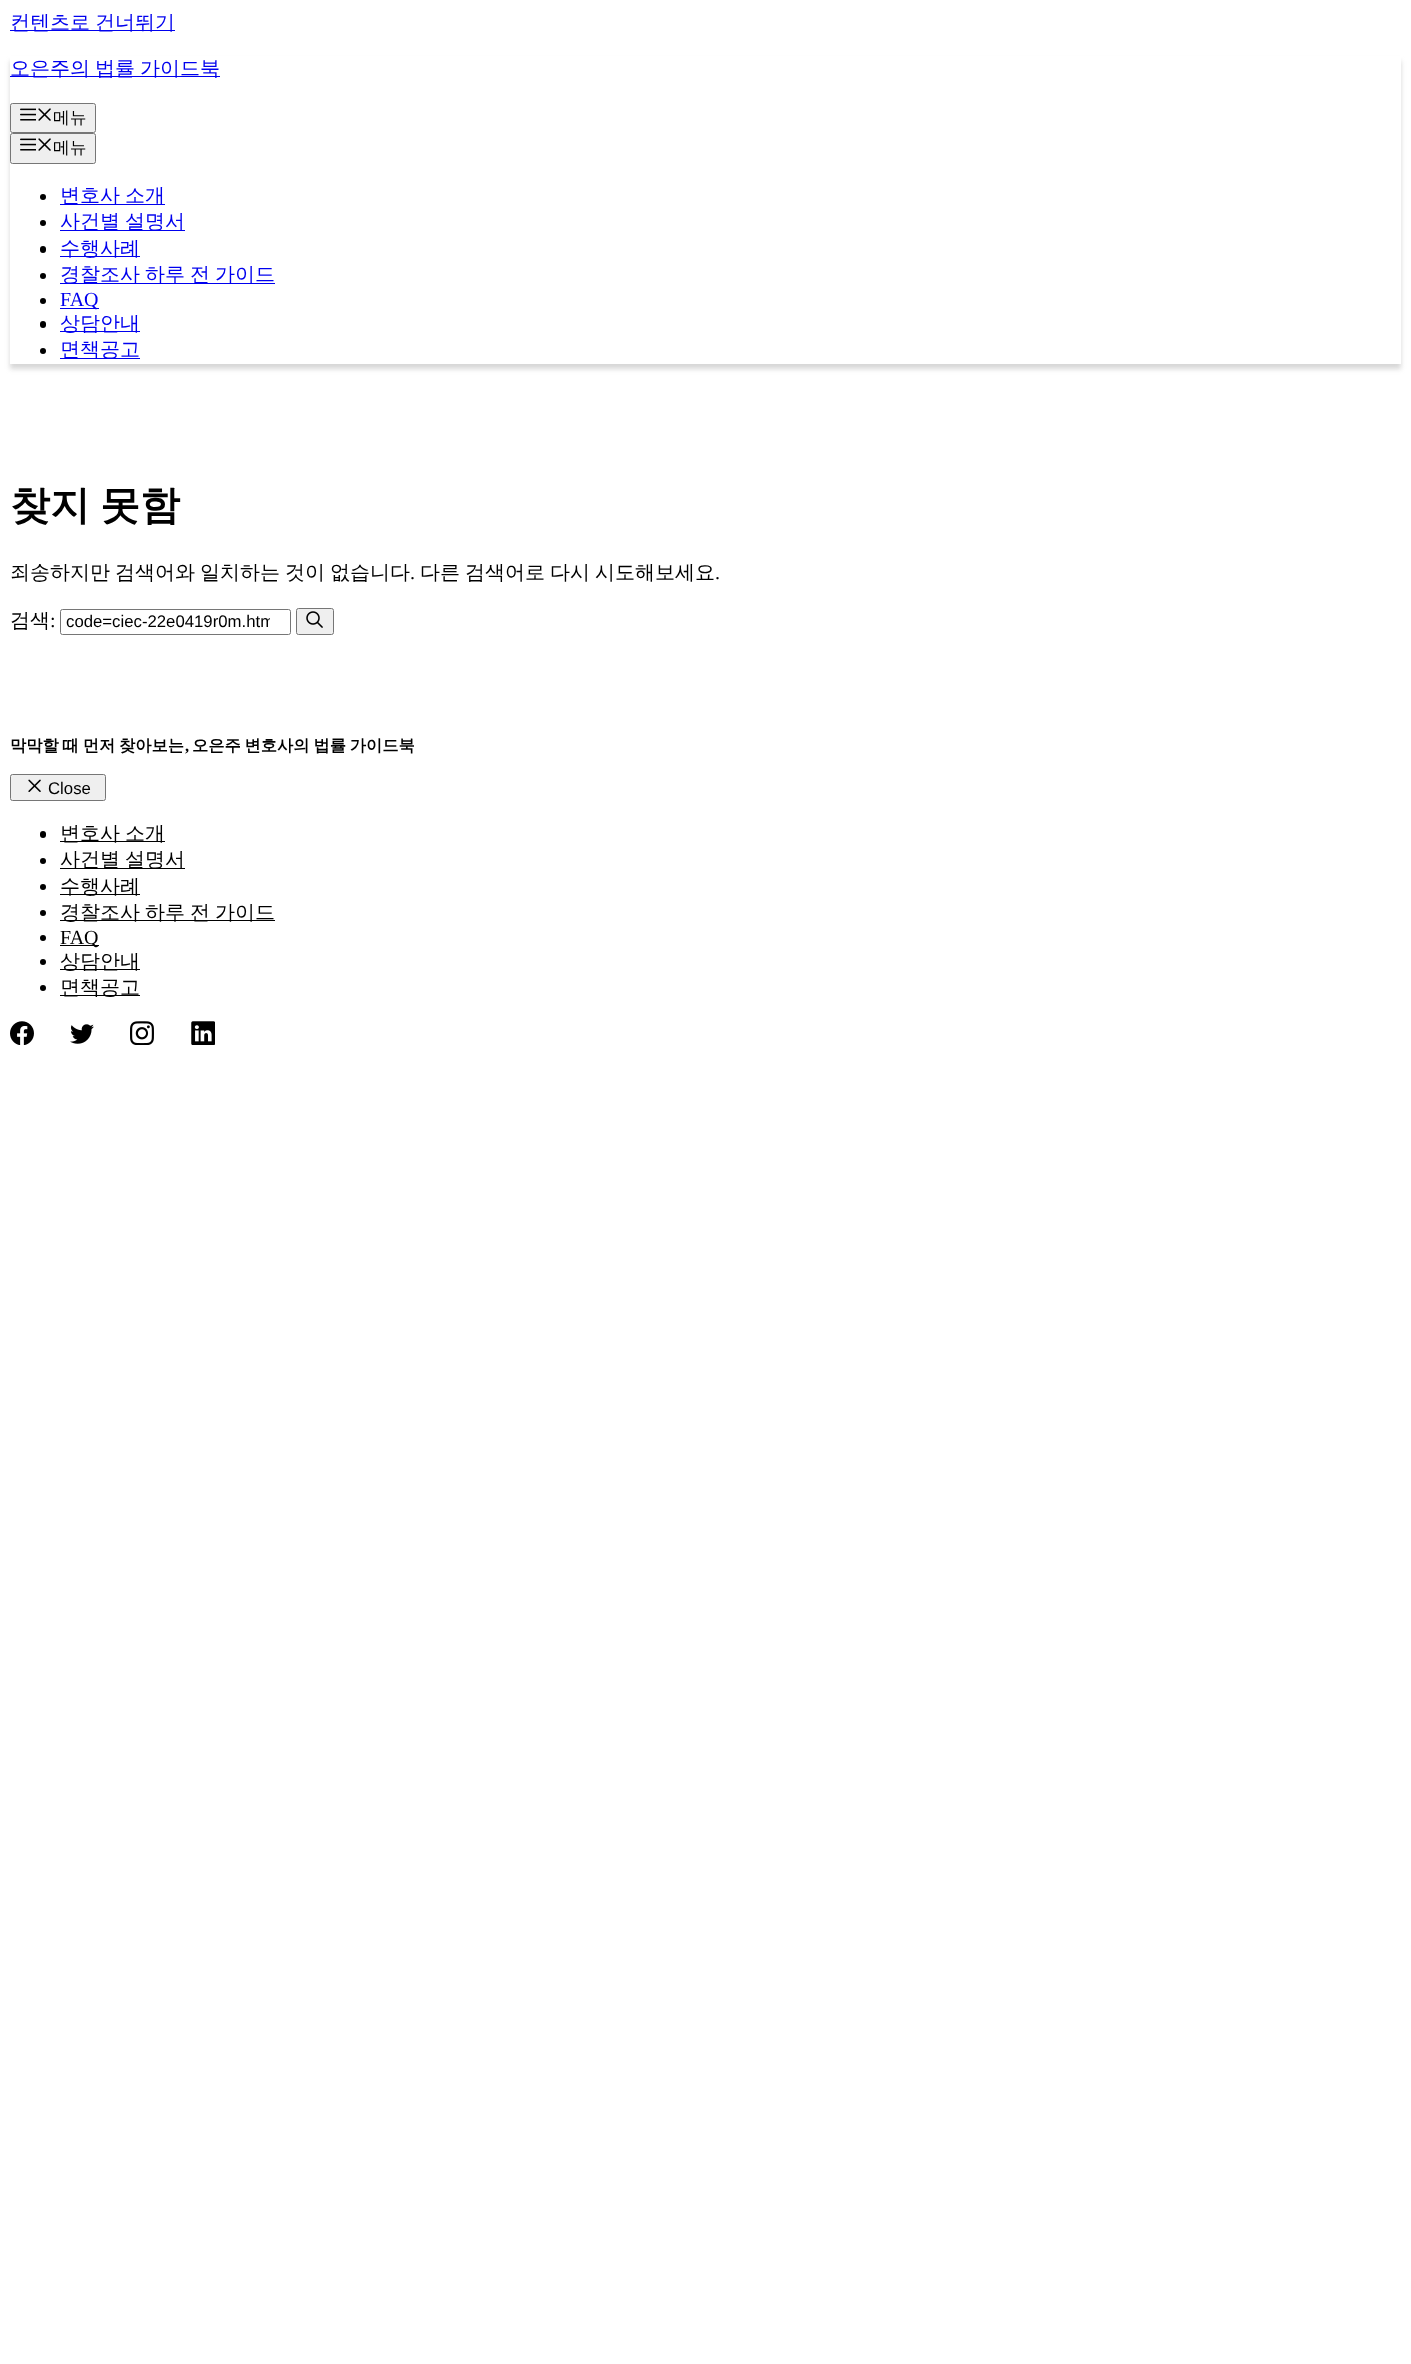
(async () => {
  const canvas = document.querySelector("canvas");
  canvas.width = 1411;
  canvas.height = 2364;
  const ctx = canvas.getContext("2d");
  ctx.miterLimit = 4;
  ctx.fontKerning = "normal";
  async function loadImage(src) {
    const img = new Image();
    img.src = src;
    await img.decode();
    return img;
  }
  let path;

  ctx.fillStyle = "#ffffff";
  ctx.fillRect(0, 0, 1411, 2364);
  ctx.fillStyle = "#0000ee";
  ctx.fillRect(10, 30, 165, 1);
  ctx.save();
  path = new Path2D("M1 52H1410V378H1ZM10 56H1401V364H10Z");
  ctx.clip(path, "evenodd");
  ctx.fillStyle = "rgba(156, 156, 156, 0.4)";
  ctx.filter = "blur(2.5px)";
  ctx.beginPath();
  ctx.rect(10, 61, 1391, 308);
  ctx.fill();
  ctx.filter = "none";
  ctx.restore();
  ctx.fillRect(10, 76, 210, 1);
  ctx.fillStyle = "#efefef";
  ctx.beginPath();
  ctx.roundRect(10.5, 103.5, 85, 29, 2);
  ctx.fill();
  ctx.strokeStyle = "#767676";
  ctx.stroke();
  ctx.drawImage(await loadImage("img/1.png"), 20, 108, 16, 13);
  ctx.drawImage(await loadImage("img/2.png"), 38, 108, 13, 13);
  ctx.beginPath();
  ctx.roundRect(10.5, 133.5, 85, 30, 2);
  ctx.fill();
  ctx.stroke();
  ctx.drawImage(await loadImage("img/1.png"), 20, 138, 16, 13);
  ctx.drawImage(await loadImage("img/2.png"), 38, 138, 13, 13);
  ctx.fillStyle = "#000000";
  ctx.beginPath();
  ctx.arc(43, 197, 3, 0, Math.PI * 2);
  ctx.fill();
  ctx.fillStyle = "#0000ee";
  ctx.fillRect(60, 204, 105, 1);
  ctx.fillStyle = "#000000";
  ctx.beginPath();
  ctx.arc(43, 223, 3, 0, Math.PI * 2);
  ctx.fill();
  ctx.fillStyle = "#0000ee";
  ctx.fillRect(60, 230, 125, 1);
  ctx.fillStyle = "#000000";
  ctx.beginPath();
  ctx.roundRect(40, 246, 6, 7, 3);
  ctx.fill();
  ctx.fillStyle = "#0000ee";
  ctx.fillRect(60, 256, 80, 1);
  ctx.fillStyle = "#000000";
  ctx.beginPath();
  ctx.arc(43, 276, 3, 0, Math.PI * 2);
  ctx.fill();
  ctx.fillStyle = "#0000ee";
  ctx.fillRect(60, 283, 215, 1);
  ctx.fillStyle = "#000000";
  ctx.beginPath();
  ctx.arc(43, 301, 3, 0, Math.PI * 2);
  ctx.fill();
  ctx.fillStyle = "#0000ee";
  ctx.fillRect(60, 308, 39, 1);
  ctx.fillStyle = "#000000";
  ctx.beginPath();
  ctx.roundRect(40, 321, 6, 7, 3);
  ctx.fill();
  ctx.fillStyle = "#0000ee";
  ctx.fillRect(60, 331, 80, 1);
  ctx.fillStyle = "#000000";
  ctx.beginPath();
  ctx.arc(43, 351, 3, 0, Math.PI * 2);
  ctx.fill();
  ctx.fillStyle = "#0000ee";
  ctx.fillRect(60, 358, 80, 1);
  ctx.beginPath();
  ctx.roundRect(60.5, 609.5, 230, 25, 2);
  ctx.stroke();
  ctx.fillStyle = "#efefef";
  ctx.beginPath();
  ctx.roundRect(296.5, 608.5, 37, 26, 2);
  ctx.fill();
  ctx.stroke();
  ctx.drawImage(await loadImage("img/3.png"), 306, 611, 17, 17);
  ctx.beginPath();
  ctx.roundRect(10.5, 774.5, 95, 26, 2);
  ctx.fill();
  ctx.stroke();
  ctx.drawImage(await loadImage("img/4.png"), 28, 779, 13, 13);
  ctx.fillStyle = "#000000";
  ctx.beginPath();
  ctx.roundRect(40, 831, 6, 7, 3);
  ctx.fill();
  ctx.fillRect(60, 841, 105, 1);
  ctx.beginPath();
  ctx.arc(43, 861, 3, 0, Math.PI * 2);
  ctx.fill();
  ctx.fillRect(60, 868, 125, 1);
  ctx.beginPath();
  ctx.arc(43, 887, 3, 0, Math.PI * 2);
  ctx.fill();
  ctx.fillRect(60, 894, 80, 1);
  ctx.beginPath();
  ctx.arc(43, 913, 3, 0, Math.PI * 2);
  ctx.fill();
  ctx.fillRect(60, 920, 215, 1);
  ctx.beginPath();
  ctx.arc(43, 938, 3, 0, Math.PI * 2);
  ctx.fill();
  ctx.fillRect(60, 945, 39, 1);
  ctx.beginPath();
  ctx.arc(43, 962, 3, 0, Math.PI * 2);
  ctx.fill();
  ctx.fillRect(60, 969, 80, 1);
  ctx.beginPath();
  ctx.arc(43, 988, 3, 0, Math.PI * 2);
  ctx.fill();
  ctx.fillRect(60, 995, 80, 1);
  ctx.drawImage(await loadImage("img/5.png"), 10, 1021, 24, 24);
  ctx.drawImage(await loadImage("img/6.png"), 70, 1024, 24, 20);
  ctx.drawImage(await loadImage("img/7.png"), 130, 1021, 24, 24);
  ctx.drawImage(await loadImage("img/8.png"), 191, 1021, 24, 24);
  ctx.wordSpacing = "-1px";
  ctx.font = "500 20px WenQuanYi Zen Hei";
  ctx.fillStyle = "#0000ee";
  ctx.fillText("컨텐츠로 건너뛰기", 10, 29);
  ctx.fillText("오은주의 법률 가이드북", 10, 75);
  ctx.wordSpacing = "0px";
  ctx.font = "500 16.75px WenQuanYi Zen Hei";
  ctx.fillStyle = "#000000";
  ctx.fillText("메뉴", 53, 123);
  ctx.fillText("메뉴", 53, 153);
  ctx.wordSpacing = "-1px";
  ctx.font = "500 20px WenQuanYi Zen Hei";
  ctx.fillStyle = "#0000ee";
  ctx.fillText("변호사 소개", 60, 202);
  ctx.fillText("사건별 설명서", 60, 228);
  ctx.wordSpacing = "0px";
  ctx.fillText("수행사례", 60, 255);
  ctx.wordSpacing = "-1px";
  ctx.fillText("경찰조사 하루 전 가이드", 60, 281);
  ctx.wordSpacing = "0px";
  ctx.font = "20px Liberation Serif";
  ctx.fillText("FAQ", 60, 306);
  ctx.font = "500 20px WenQuanYi Zen Hei";
  ctx.fillText("상담안내", 60, 330);
  ctx.fillText("면책공고", 60, 356);
  ctx.wordSpacing = "-2px";
  ctx.font = "bold 40px WenQuanYi Zen Hei";
  ctx.fillStyle = "#000000";
  ctx.fillText("찾지 못함", 10, 519);
  ctx.wordSpacing = "-1px";
  ctx.font = "500 20px WenQuanYi Zen Hei";
  ctx.fillText("죄송하지만 검색어와 일치하는 것이 없습니다", 10, 579);
  ctx.wordSpacing = "0px";
  ctx.font = "20px Liberation Serif";
  ctx.fillText(".", 410, 579);
  ctx.wordSpacing = "-1px";
  ctx.font = "500 20px WenQuanYi Zen Hei";
  ctx.fillText("다른 검색어로 다시 시도해보세요", 420, 579);
  ctx.wordSpacing = "0px";
  ctx.font = "20px Liberation Serif";
  ctx.fillText(".", 715, 579);
  ctx.font = "500 20px WenQuanYi Zen Hei";
  ctx.fillText("검색", 10, 627);
  ctx.font = "20px Liberation Serif";
  ctx.fillText(":", 50, 627);
  ctx.save();
  ctx.beginPath();
  ctx.rect(65, 613, 205, 18);
  ctx.clip();
  ctx.font = "16.75px Liberation Sans";
  ctx.fillText("code=ciec-22e0419r0m.htm", 66, 627);
  ctx.restore();
  ctx.wordSpacing = "-1px";
  ctx.font = "bold 16.25px WenQuanYi Zen Hei";
  ctx.fillText("막막할 때 먼저 찾아보는", 10, 751);
  ctx.wordSpacing = "0px";
  ctx.font = "bold 16.25px Liberation Serif";
  ctx.fillText(",", 185, 751);
  ctx.wordSpacing = "-1px";
  ctx.font = "bold 16.25px WenQuanYi Zen Hei";
  ctx.fillText("오은주 변호사의 법률 가이드북", 192, 751);
  ctx.wordSpacing = "0px";
  ctx.font = "16.75px Liberation Sans";
  ctx.fillText("Close", 48, 794);
  ctx.wordSpacing = "-1px";
  ctx.font = "500 20px WenQuanYi Zen Hei";
  ctx.fillText("변호사 소개", 60, 840);
  ctx.fillText("사건별 설명서", 60, 866);
  ctx.wordSpacing = "0px";
  ctx.fillText("수행사례", 60, 893);
  ctx.wordSpacing = "-1px";
  ctx.fillText("경찰조사 하루 전 가이드", 60, 919);
  ctx.wordSpacing = "0px";
  ctx.font = "20px Liberation Serif";
  ctx.fillText("FAQ", 60, 944);
  ctx.font = "500 20px WenQuanYi Zen Hei";
  ctx.fillText("상담안내", 60, 968);
  ctx.fillText("면책공고", 60, 994);
})();
